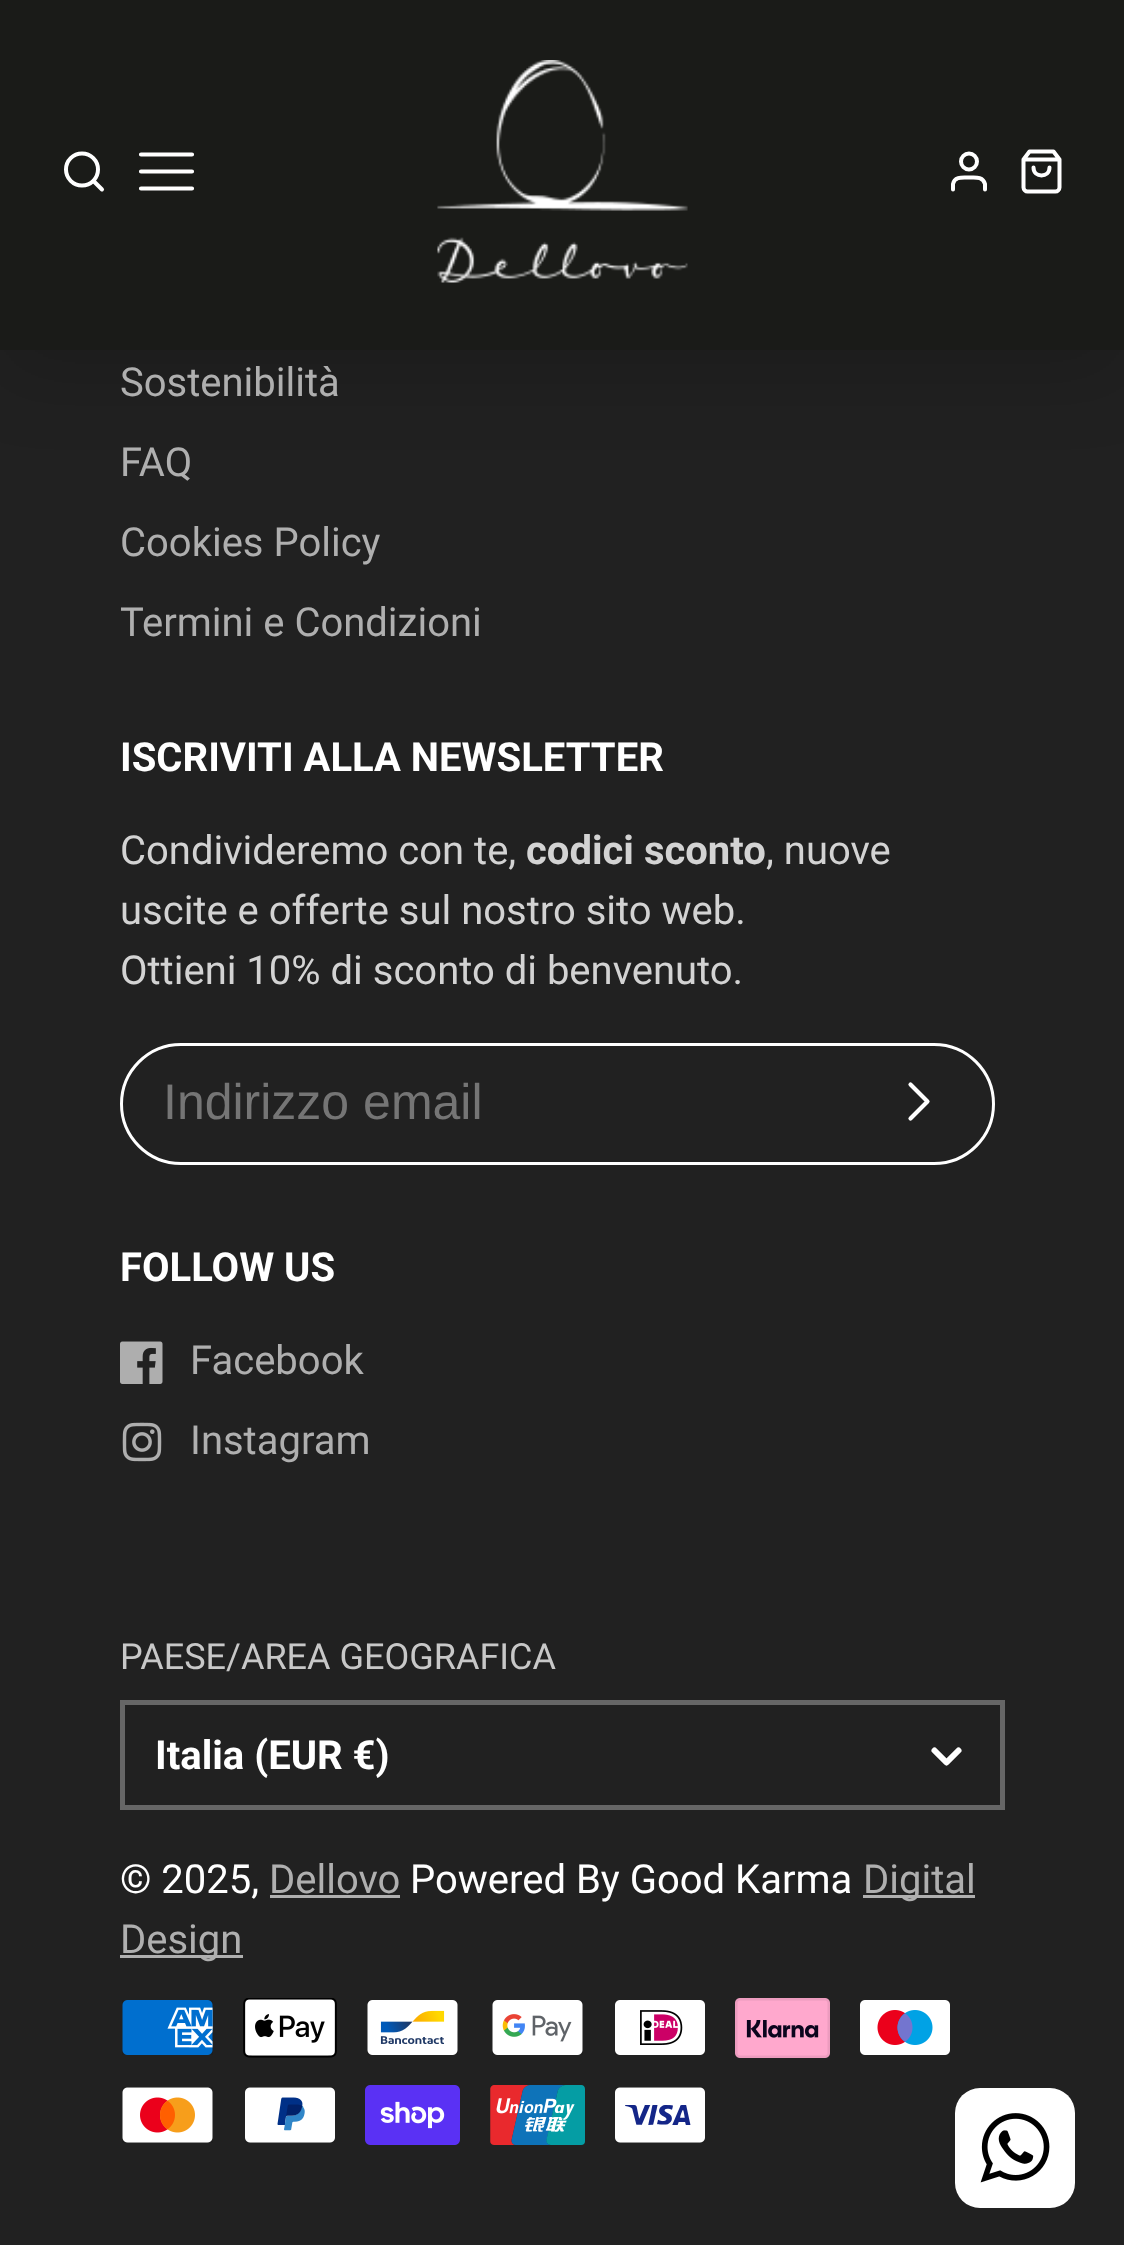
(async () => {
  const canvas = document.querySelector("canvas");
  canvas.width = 1124;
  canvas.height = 2245;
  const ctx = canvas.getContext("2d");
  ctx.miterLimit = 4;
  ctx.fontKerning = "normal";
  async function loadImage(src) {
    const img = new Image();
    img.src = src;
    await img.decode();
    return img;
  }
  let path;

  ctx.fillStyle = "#212121";
  ctx.fillRect(0, 0, 1124, 2245);
  ctx.fillStyle = "rgba(0, 0, 0, 0.15)";
  ctx.filter = "blur(37.5px)";
  ctx.beginPath();
  ctx.rect(0, 25, 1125, 350);
  ctx.fill();
  ctx.filter = "none";
  ctx.fillStyle = "#1a1b18";
  ctx.fillRect(0, 0, 1124, 350);
  ctx.beginPath();
  ctx.arc(82, 169.5, 16, 0, Math.PI * 2);
  ctx.strokeStyle = "#ffffff";
  ctx.lineWidth = 4;
  ctx.stroke();
  path = new Path2D("M102 189.5L93.5 181");
  ctx.lineCap = "round";
  ctx.lineJoin = "round";
  ctx.stroke(path);
  path = new Path2D("M141 171.5H192M141 154.5H192M141 188.5H192");
  ctx.lineWidth = 4.2;
  ctx.stroke(path);
  ctx.drawImage(await loadImage("img/1.png"), 437, 60, 251, 223);
  ctx.beginPath();
  ctx.arc(969, 161.5, 8, 0, Math.PI * 2);
  ctx.lineWidth = 4;
  ctx.stroke();
  path = new Path2D("M985 189.5V184C983 176 975 177.5 969 177.5C963 177.5 954.5 176 953 184V189.5");
  ctx.stroke(path);
  path = new Path2D("M1029.5 151.5L1023.5 159.5V187.5C1023.5 189.5 1025.5 191.5 1027.5 191.5H1055.5C1057.5 191.5 1059.5 189.5 1059.5 187.5V159.5L1053.5 151.5ZM1023.5 159.5H1059.5M1049.5 167.5C1049.5 178 1033.5 178 1033.5 167.5");
  ctx.stroke(path);
  ctx.beginPath();
  ctx.roundRect(121.5, 1044.5, 872, 119, 59.5);
  ctx.lineWidth = 3;
  ctx.lineJoin = "miter";
  ctx.stroke();
  path = new Path2D("M910.5 1118.5L927.5 1101.5L910.5 1084.5");
  ctx.lineWidth = 4.2;
  ctx.lineJoin = "round";
  ctx.stroke(path);
  ctx.drawImage(await loadImage("img/2.png"), 120, 1341, 43, 43);
  ctx.drawImage(await loadImage("img/3.png"), 122, 1422, 40, 40);
  ctx.strokeStyle = "#666666";
  ctx.lineWidth = 5;
  ctx.lineJoin = "miter";
  ctx.strokeRect(122.5, 1702.5, 880, 105);
  path = new Path2D("M934.5 1750.5L946.5 1762.5L958.5 1750.5");
  ctx.strokeStyle = "#ffffff";
  ctx.lineWidth = 6;
  ctx.lineJoin = "round";
  ctx.stroke(path);
  for (const [x, y, w, h, color] of [
    [270, 1895, 130, 3, "#afafaf"],
    [863, 1895, 112, 3, "#afafaf"],
    [120, 1955, 123, 3, "#afafaf"],
  ]) {
    ctx.fillStyle = color;
    ctx.fillRect(x, y, w, h);
  }
  ctx.drawImage(await loadImage("img/4.png"), 122, 2000, 91, 55);
  ctx.drawImage(await loadImage("img/5.png"), 243, 1998, 94, 60);
  ctx.drawImage(await loadImage("img/6.png"), 367, 2000, 91, 55);
  ctx.drawImage(await loadImage("img/7.png"), 492, 2000, 91, 55);
  ctx.drawImage(await loadImage("img/8.png"), 615, 2000, 90, 55);
  ctx.drawImage(await loadImage("img/9.png"), 735, 1998, 95, 60);
  ctx.drawImage(await loadImage("img/10.png"), 860, 2000, 90, 55);
  ctx.drawImage(await loadImage("img/11.png"), 122, 2087, 91, 56);
  ctx.drawImage(await loadImage("img/12.png"), 245, 2087, 90, 56);
  ctx.drawImage(await loadImage("img/13.png"), 365, 2085, 95, 60);
  ctx.drawImage(await loadImage("img/14.png"), 490, 2085, 95, 60);
  ctx.drawImage(await loadImage("img/15.png"), 615, 2087, 90, 56);
  ctx.fillStyle = "#ffffff";
  ctx.beginPath();
  ctx.roundRect(955, 2088, 120, 120, 25);
  ctx.fill();
  ctx.drawImage(await loadImage("img/16.png"), 980, 2113, 70, 70);
  ctx.font = "40px Roboto";
  ctx.fillStyle = "#afafaf";
  for (const [text, x, y] of [
    ["Sostenibilità", 120, 396],
    ["FAQ", 120, 476],
    ["Cookies Policy", 120, 556],
    ["Termini e Condizioni", 120, 636],
  ]) {
    ctx.fillText(text, x, y);
  }
  ctx.font = "bold 40px Roboto";
  ctx.fillStyle = "#ffffff";
  ctx.fillText("ISCRIVITI ALLA NEWSLETTER", 120, 771);
  ctx.font = "40px Roboto";
  ctx.fillStyle = "#d3d3d3";
  ctx.fillText("Condivideremo con te,", 120, 864);
  ctx.font = "bold 40px Roboto";
  ctx.fillText("codici sconto", 526, 864);
  ctx.font = "40px Roboto";
  for (const [text, x, y] of [
    [", nuove", 766, 864],
    ["uscite e offerte sul nostro sito web.", 120, 924],
    ["Ottieni 10% di sconto di benvenuto.", 120, 984],
  ]) {
    ctx.fillText(text, x, y);
  }
  ctx.font = "50px Liberation Sans";
  ctx.fillStyle = "#757575";
  ctx.fillText("Indirizzo email", 163, 1119);
  ctx.font = "bold 40px Roboto";
  ctx.fillStyle = "#ffffff";
  ctx.fillText("FOLLOW US", 120, 1281);
  ctx.font = "40px Roboto";
  ctx.fillStyle = "#afafaf";
  ctx.fillText("Facebook", 190, 1374);
  ctx.fillText("Instagram", 190, 1454);
  ctx.font = "36px Roboto";
  ctx.fillStyle = "#c8c8c8";
  ctx.fillText("PAESE/AREA GEOGRAFICA", 120, 1669);
  ctx.font = "bold 40px Roboto";
  ctx.fillStyle = "#ffffff";
  ctx.fillText("Italia (EUR €)", 155, 1769);
  ctx.font = "40px Roboto";
  ctx.fillText("© 2025,", 120, 1893);
  ctx.fillStyle = "#afafaf";
  ctx.fillText("Dellovo", 269, 1893);
  ctx.fillStyle = "#ffffff";
  ctx.fillText("Powered By Good Karma", 410, 1893);
  ctx.fillStyle = "#afafaf";
  ctx.fillText("Digital", 863, 1893);
  ctx.fillText("Design", 120, 1953);
})();
